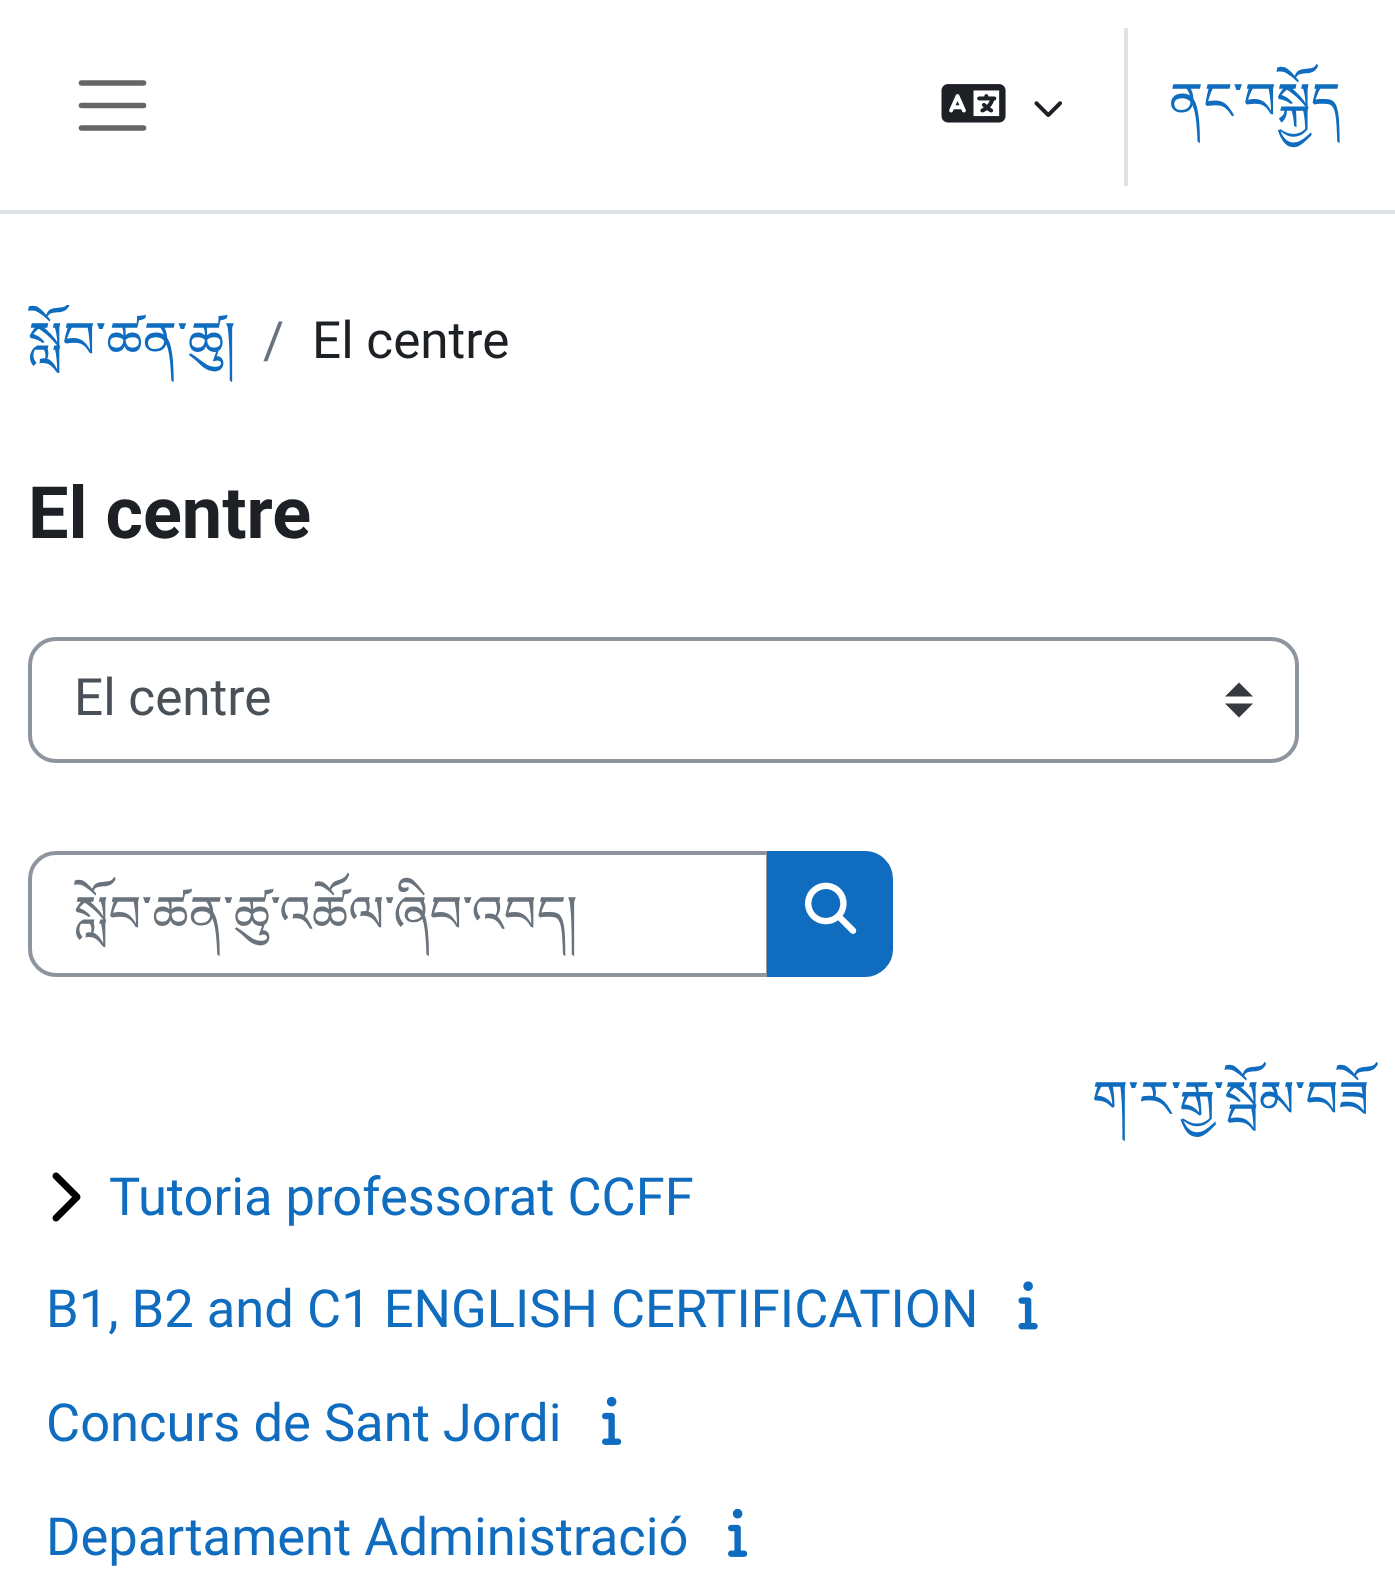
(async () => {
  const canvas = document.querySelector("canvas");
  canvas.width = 1395;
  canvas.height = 1588;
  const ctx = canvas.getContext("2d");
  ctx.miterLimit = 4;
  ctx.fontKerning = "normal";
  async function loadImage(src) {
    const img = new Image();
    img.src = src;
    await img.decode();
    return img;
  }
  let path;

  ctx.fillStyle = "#ffffff";
  ctx.fillRect(0, 0, 1395, 1588);
  ctx.fillStyle = "#dee2e6";
  ctx.fillRect(0, 210, 1395, 4);
  path = new Path2D("M81.5 83H143.5M81.5 105.5H143.5M81.5 128H143.5");
  ctx.strokeStyle = "#666666";
  ctx.lineWidth = 5.6;
  ctx.lineCap = "round";
  ctx.stroke(path);
  ctx.drawImage(await loadImage("img/1.png"), 941, 84, 65, 39);
  ctx.drawImage(await loadImage("img/2.png"), 1034, 101, 28, 16);
  ctx.fillRect(1124, 28, 4, 158);
  ctx.fillStyle = "#343a40";
  path = new Path2D("M1239 682.5L1225 696.5H1253ZM1239 717.5L1225 703.5H1253Z");
  ctx.fill(path);
  ctx.beginPath();
  ctx.roundRect(30, 639, 1267, 122, 26);
  ctx.strokeStyle = "#8f959e";
  ctx.lineWidth = 4;
  ctx.stroke();
  ctx.beginPath();
  ctx.roundRect(30, 853, 738, 122, [26, 0, 0, 26]);
  ctx.stroke();
  ctx.fillStyle = "#0f6cbf";
  ctx.beginPath();
  ctx.roundRect(769, 853, 122, 122, [0, 26, 26, 0]);
  ctx.fill();
  ctx.strokeStyle = "#0f6cbf";
  ctx.stroke();
  ctx.drawImage(await loadImage("img/3.png"), 805, 882, 52, 52);
  ctx.drawImage(await loadImage("img/4.png"), 52, 1172, 29, 50);
  ctx.drawImage(await loadImage("img/5.png"), 1018, 1281, 20, 49);
  ctx.drawImage(await loadImage("img/6.png"), 602, 1396, 20, 49);
  ctx.drawImage(await loadImage("img/6.png"), 728, 1508, 20, 49);
  ctx.font = "51.25px Noto Serif Tibetan";
  ctx.fillText("ནང་བསྐྱོད", 1169, 119);
  ctx.save();
  ctx.beginPath();
  ctx.rect(28, 305, 207, 77);
  ctx.clip();
  ctx.fillText("སློབ་ཚན་ཚུ།", 28, 358);
  ctx.restore();
  ctx.font = "51.25px Roboto";
  ctx.fillStyle = "#6a737b";
  ctx.fillText("/", 263, 358);
  ctx.fillStyle = "#1d2125";
  ctx.fillText("El centre", 312, 358);
  ctx.font = "bold 72px Roboto";
  ctx.fillText("El centre", 28, 538);
  ctx.font = "51.25px Roboto";
  ctx.fillStyle = "#495057";
  ctx.fillText("El centre", 74, 715);
  ctx.save();
  ctx.beginPath();
  ctx.rect(74, 858, 651, 143);
  ctx.clip();
  ctx.font = "51.25px Noto Serif Tibetan";
  ctx.fillStyle = "#6a737b";
  ctx.fillText("སློབ་ཚན་ཚུ་འཚོལ་ཞིབ་འབད།", 74, 932);
  ctx.restore();
  ctx.font = "51.25px Noto Serif Tibetan";
  ctx.fillStyle = "#0f6cbf";
  ctx.fillText("ག་ར་རྒྱ་སྦོམ་བཟོ", 1092, 1117);
  ctx.font = "52.5px Roboto";
  for (const [text, x, y] of [
    ["Tutoria professorat CCFF", 109, 1215],
    ["B1, B2 and C1 ENGLISH CERTIFICATION", 46, 1327],
    ["Concurs de Sant Jordi", 46, 1441],
    ["Departament Administració", 46, 1555],
  ]) {
    ctx.fillText(text, x, y);
  }
})();
